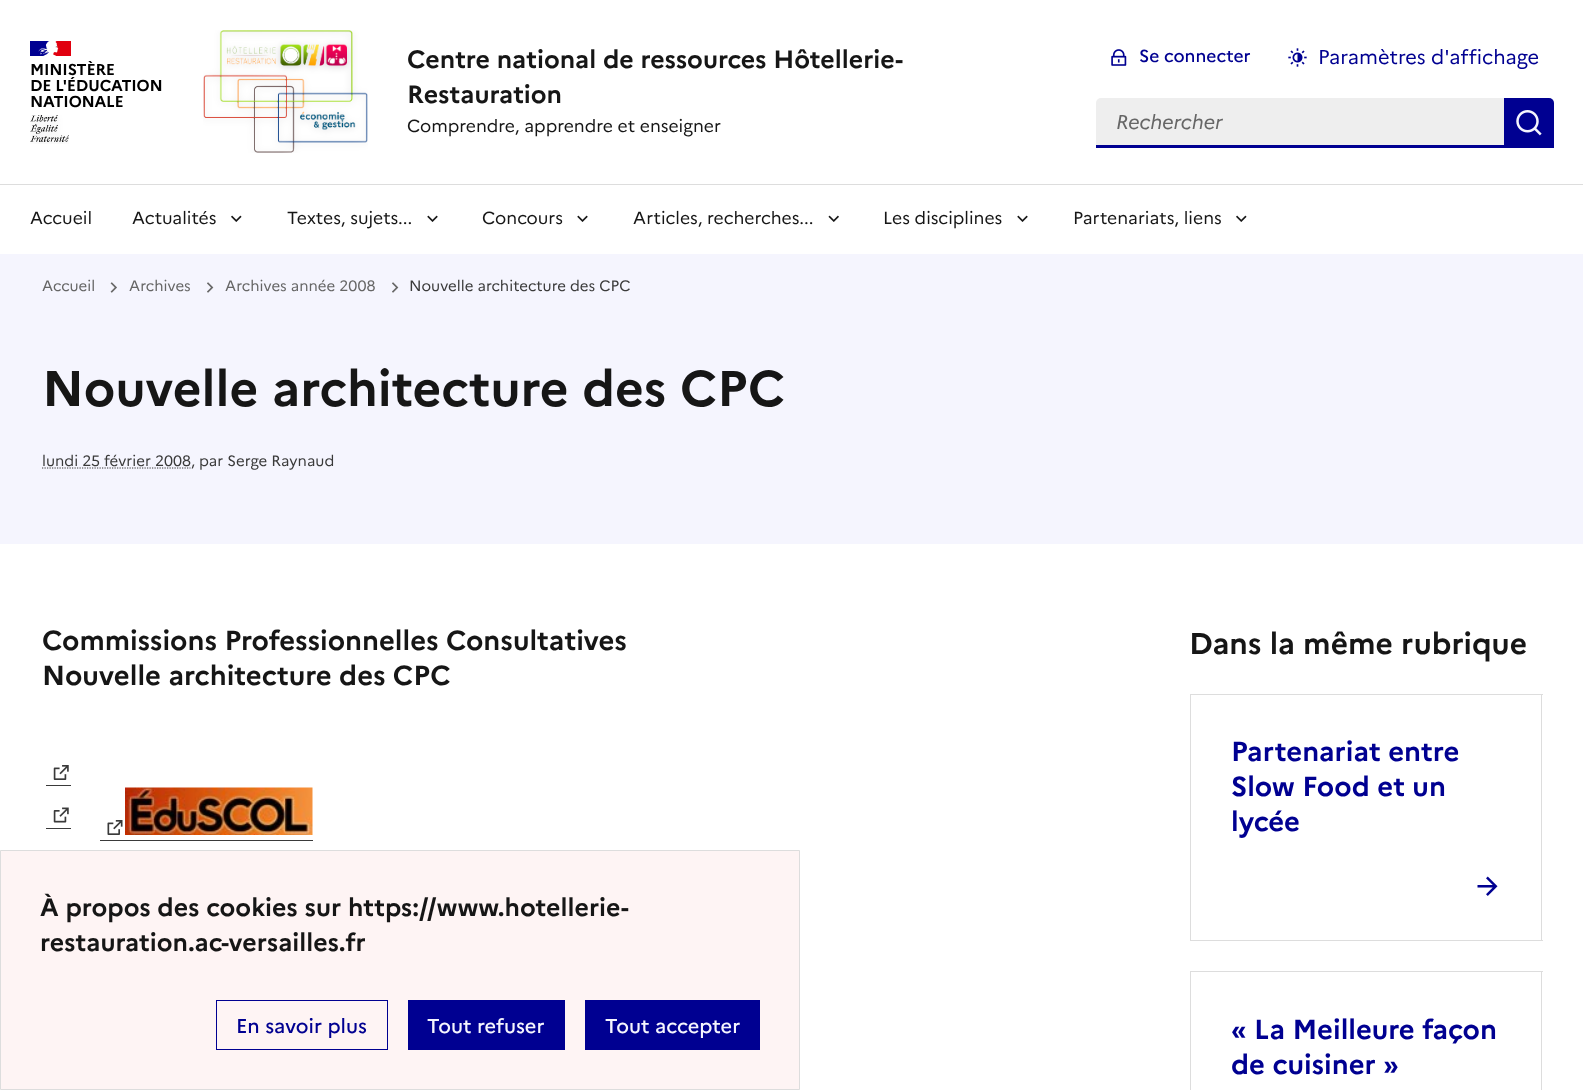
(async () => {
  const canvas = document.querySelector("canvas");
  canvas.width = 1583;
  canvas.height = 1090;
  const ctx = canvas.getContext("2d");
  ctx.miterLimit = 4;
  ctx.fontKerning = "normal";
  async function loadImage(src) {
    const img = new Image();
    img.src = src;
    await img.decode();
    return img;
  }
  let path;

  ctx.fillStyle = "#ffffff";
  ctx.fillRect(0, 0, 1583, 1090);
  ctx.fillStyle = "#000091";
  ctx.fillRect(30, 41, 20, 15);
  ctx.fillStyle = "#e1000f";
  ctx.fillRect(53, 41, 18, 15);
  ctx.drawImage(await loadImage("img/1.png"), 38, 41, 21, 15);
  ctx.drawImage(await loadImage("img/2.png"), 30, 115, 39, 29);
  ctx.drawImage(await loadImage("img/3.png"), 203, 30, 165, 123);
  ctx.drawImage(await loadImage("img/4.png"), 1111, 49, 16, 17);
  ctx.drawImage(await loadImage("img/5.png"), 1288, 48, 19, 19);
  ctx.fillStyle = "#eeeeee";
  ctx.beginPath();
  ctx.roundRect(1096, 98, 408, 50, [5, 0, 0, 0]);
  ctx.fill();
  ctx.fillStyle = "#000091";
  ctx.fillRect(1096, 145, 408, 3);
  ctx.beginPath();
  ctx.roundRect(1504, 98, 50, 50, [0, 5, 0, 0]);
  ctx.fill();
  ctx.drawImage(await loadImage("img/6.png"), 1516, 110, 26, 26);
  ctx.fillStyle = "#dddddd";
  ctx.fillRect(0, 184, 1583, 1);
  ctx.drawImage(await loadImage("img/7.png"), 231, 215, 11, 7);
  ctx.drawImage(await loadImage("img/8.png"), 427, 215, 11, 7);
  ctx.drawImage(await loadImage("img/8.png"), 577, 215, 11, 7);
  ctx.drawImage(await loadImage("img/9.png"), 828, 215, 11, 7);
  ctx.drawImage(await loadImage("img/8.png"), 1017, 215, 11, 7);
  ctx.drawImage(await loadImage("img/7.png"), 1236, 215, 11, 7);
  ctx.fillStyle = "#f5f5fe";
  ctx.fillRect(0, 254, 1583, 290);
  ctx.drawImage(await loadImage("img/10.png"), 110, 282, 7, 11);
  ctx.drawImage(await loadImage("img/11.png"), 207, 282, 7, 11);
  ctx.drawImage(await loadImage("img/11.png"), 392, 282, 7, 11);
  path = new Path2D("M42 468H190.5");
  ctx.strokeStyle = "#3a3a3a";
  ctx.lineWidth = 1.2;
  ctx.setLineDash([1.25, 1.25]);
  ctx.stroke(path);
  ctx.fillStyle = "#3a3a3a";
  ctx.fillRect(46, 785, 25, 1);
  ctx.drawImage(await loadImage("img/12.png"), 53, 765, 16, 15);
  ctx.fillRect(46, 828, 25, 1);
  ctx.drawImage(await loadImage("img/13.png"), 53, 807, 16, 16);
  ctx.drawImage(await loadImage("img/14.png"), 125, 787, 188, 48);
  ctx.fillRect(100, 840, 213, 1);
  ctx.drawImage(await loadImage("img/15.png"), 107, 820, 16, 15);
  for (const [x, y, w, h, color] of [
    [1190, 694, 353, 1, "#dddddd"],
    [1541, 694, 1, 247, "#dddddd"],
    [1190, 694, 1, 247, "#dddddd"],
    [1190, 940, 353, 1, "#dddddd"],
  ]) {
    ctx.fillStyle = color;
    ctx.fillRect(x, y, w, h);
  }
  ctx.drawImage(await loadImage("img/16.png"), 1477, 876, 21, 20);
  for (const [x, y, w, h, color] of [
    [1190, 971, 353, 1, "#dddddd"],
    [1541, 971, 1, 119, "#dddddd"],
    [1190, 971, 1, 119, "#dddddd"],
  ]) {
    ctx.fillStyle = color;
    ctx.fillRect(x, y, w, h);
  }
  ctx.fillStyle = "#fef4f4";
  ctx.beginPath();
  ctx.rect(0.5, 850.5, 799, 239);
  ctx.fill();
  ctx.strokeStyle = "#dddddd";
  ctx.lineWidth = 1;
  ctx.setLineDash([]);
  ctx.stroke();
  ctx.strokeStyle = "#000091";
  ctx.strokeRect(216.5, 1000.5, 171, 49);
  ctx.fillStyle = "#000091";
  ctx.fillRect(408, 1000, 157, 50);
  ctx.fillRect(585, 1000, 175, 50);
  ctx.letterSpacing = "-0.2px";
  ctx.font = "bold 15.75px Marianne";
  ctx.fillStyle = "#000000";
  for (const [text, x, y] of [
    ["MINISTÈRE", 30, 75],
    ["DE L'ÉDUCATION", 30, 91],
    ["NATIONALE", 30, 107],
  ]) {
    ctx.fillText(text, x, y);
  }
  ctx.letterSpacing = "0px";
  ctx.font = "bold 25px Marianne";
  ctx.fillStyle = "#161616";
  ctx.fillText("Centre national de ressources Hôtellerie-", 407, 68);
  ctx.fillText("Restauration", 407, 103);
  ctx.font = "17.5px Marianne";
  ctx.fillText("Comprendre, apprendre et enseigner", 407, 132);
  ctx.font = "500 17.5px Marianne";
  ctx.fillStyle = "#000091";
  ctx.fillText("Se connecter", 1139, 62);
  ctx.font = "20px Marianne";
  ctx.fillText("Paramètres d'affichage", 1318, 64);
  ctx.font = "italic 20px Marianne";
  ctx.fillStyle = "#666666";
  ctx.fillText("Rechercher", 1116, 129);
  ctx.font = "17.5px Marianne";
  ctx.fillStyle = "#161616";
  for (const [text, x, y] of [
    ["Accueil", 30, 224],
    ["Actualités", 132, 224],
    ["Textes, sujets...", 287, 224],
    ["Concours", 482, 224],
    ["Articles, recherches...", 633, 224],
    ["Les disciplines", 883, 224],
    ["Partenariats, liens", 1073, 224],
  ]) {
    ctx.fillText(text, x, y);
  }
  ctx.font = "15px Marianne";
  ctx.fillStyle = "#666666";
  for (const [text, x, y] of [
    ["Accueil", 42, 291],
    ["Archives", 129, 291],
    ["Archives année 2008", 225, 291],
  ]) {
    ctx.fillText(text, x, y);
  }
  ctx.fillStyle = "#3a3a3a";
  ctx.fillText("Nouvelle architecture des CPC", 409, 291);
  ctx.font = "bold 50px Marianne";
  ctx.fillStyle = "#161616";
  ctx.fillText("Nouvelle architecture des CPC", 42, 406);
  ctx.font = "15px Marianne";
  ctx.fillStyle = "#3a3a3a";
  ctx.fillText("lundi 25 février 2008", 42, 466);
  ctx.fillText(", par Serge Raynaud", 191, 466);
  ctx.font = "bold 27.5px Marianne";
  ctx.fillStyle = "#161616";
  ctx.fillText("Commissions Professionnelles Consultatives", 42, 650);
  ctx.fillText("Nouvelle architecture des CPC", 42, 685);
  ctx.font = "bold 30px Marianne";
  ctx.fillText("Dans la même rubrique", 1189, 654);
  ctx.font = "bold 27.5px Marianne";
  ctx.fillStyle = "#000091";
  for (const [text, x, y] of [
    ["Partenariat entre", 1231, 761],
    ["Slow Food et un", 1231, 796],
    ["lycée", 1231, 831],
    ["« La Meilleure façon", 1231, 1039],
    ["de cuisiner »", 1231, 1074],
  ]) {
    ctx.fillText(text, x, y);
  }
  ctx.font = "bold 25px Marianne";
  ctx.fillStyle = "#161616";
  ctx.fillText("À propos des cookies sur https://www.hotellerie-", 40, 916);
  ctx.fillText("restauration.ac-versailles.fr", 40, 951);
  ctx.font = "500 20px Marianne";
  ctx.fillStyle = "#000091";
  ctx.fillText("En savoir plus", 236, 1033);
  ctx.fillStyle = "#f5f5fe";
  ctx.fillText("Tout refuser", 427, 1033);
  ctx.fillText("Tout accepter", 605, 1033);
})();
